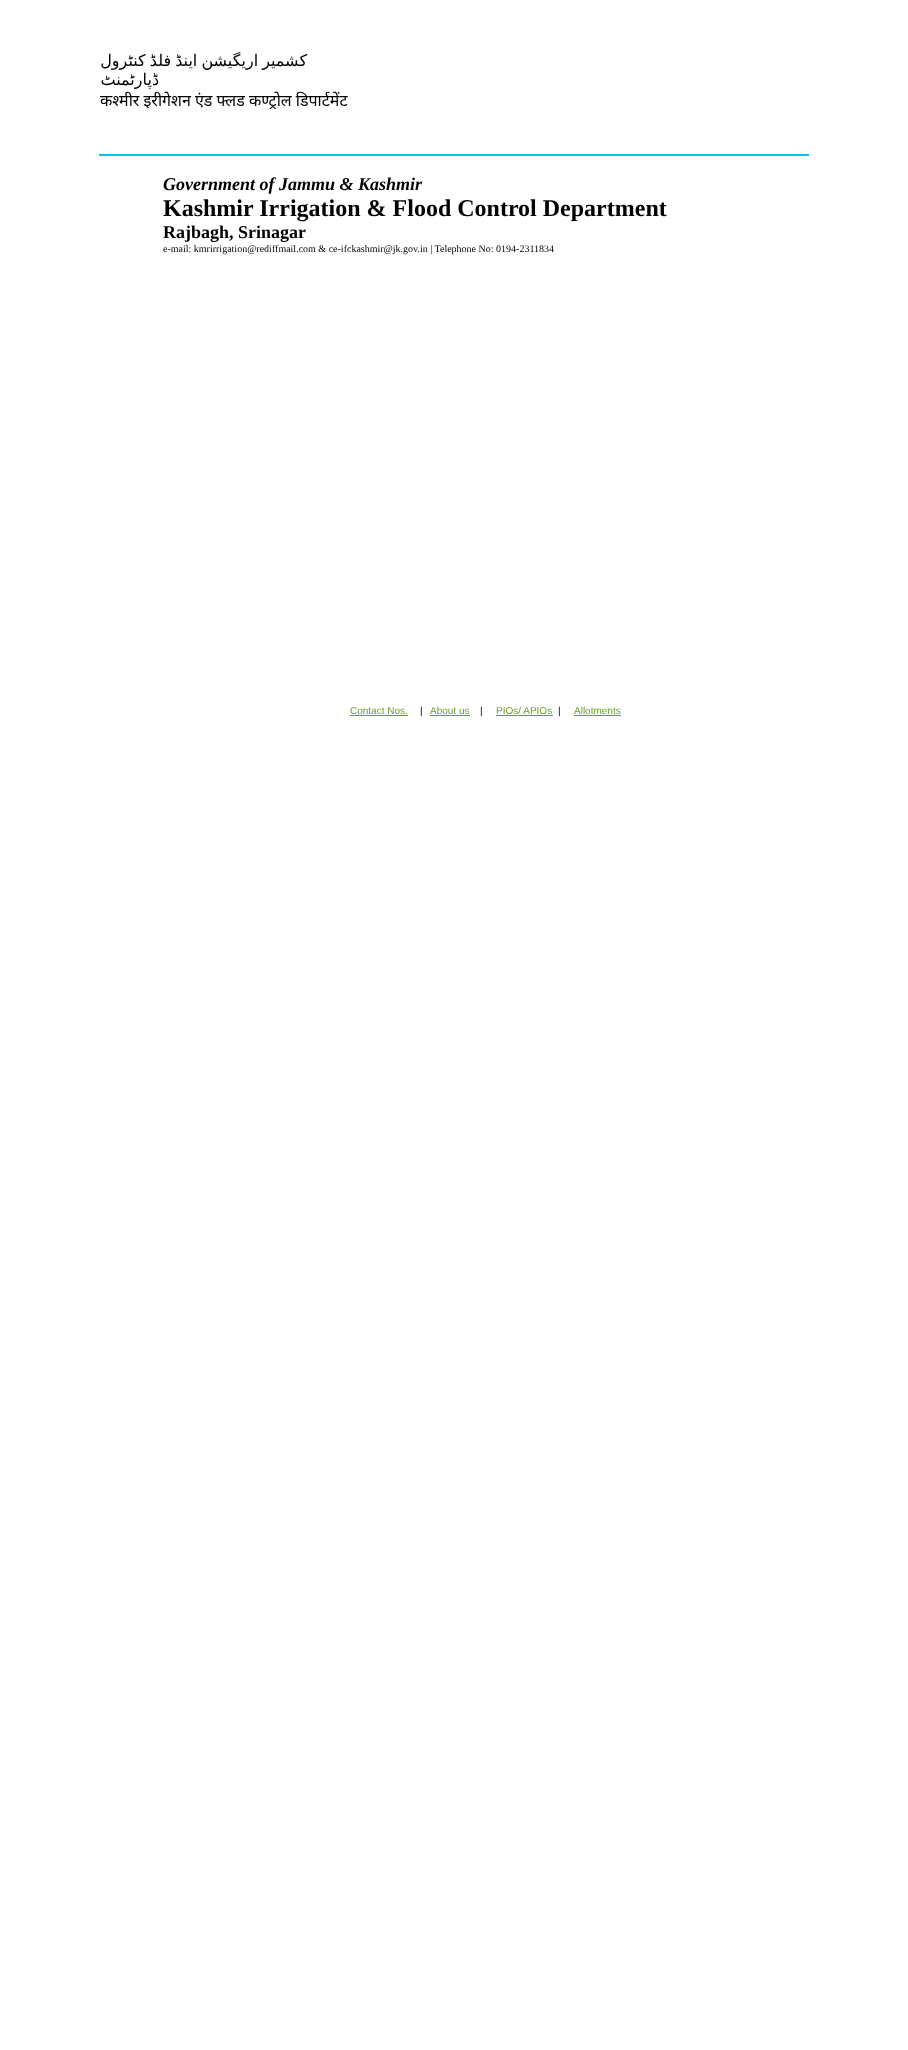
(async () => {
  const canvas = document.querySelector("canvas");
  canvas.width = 908;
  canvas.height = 2050;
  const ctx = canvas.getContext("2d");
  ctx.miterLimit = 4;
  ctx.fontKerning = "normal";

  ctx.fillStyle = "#ffffff";
  ctx.fillRect(0, 0, 908, 2050);
  for (const [x, y, w, h, color] of [
    [99, 154, 710, 2, "#0cc3e5"],
    [350, 715, 58, 1, "#6b9f25"],
    [430, 715, 40, 1, "#6b9f25"],
    [496, 715, 57, 1, "#6b9f25"],
    [574, 715, 47, 1, "#6b9f25"],
  ]) {
    ctx.fillStyle = color;
    ctx.fillRect(x, y, w, h);
  }
  ctx.wordSpacing = "-1px";
  ctx.direction = "rtl";
  ctx.font = "16px DejaVu Sans";
  ctx.fillStyle = "#000000";
  ctx.fillText("کشمیر اریگیشن اینڈ فلڈ کنٹرول", 307, 66);
  ctx.wordSpacing = "0px";
  ctx.fillText("ڈپارٹمنٹ", 159, 85);
  ctx.direction = "ltr";
  ctx.font = "16px Noto Sans";
  ctx.fillText("कश्मीर इरीगेशन एंड फ्लड कण्ट्रोल डिपार्टमेंट", 100, 106);
  ctx.font = "italic bold 18px Liberation Serif";
  ctx.fillText("Government of Jammu & Kashmir", 163, 190);
  ctx.font = "bold 24px Liberation Serif";
  ctx.fillText("Kashmir Irrigation & Flood Control Department", 163, 216);
  ctx.font = "bold 18px Liberation Serif";
  ctx.fillText("Rajbagh, Srinagar", 163, 238);
  ctx.font = "10px Liberation Serif";
  ctx.fillText("e-mail: kmrirrigation@rediffmail.com & ce-ifckashmir@jk.gov.in | Telephone No: 0194-2311834", 163, 252);
  ctx.font = "10px Liberation Sans";
  ctx.fillStyle = "#6b9f25";
  ctx.fillText("Contact Nos.", 350, 714);
  ctx.fillStyle = "#000000";
  ctx.fillText("|", 420, 714);
  ctx.fillStyle = "#6b9f25";
  ctx.fillText("About us", 430, 714);
  ctx.fillStyle = "#000000";
  ctx.fillText("|", 480, 714);
  ctx.fillStyle = "#6b9f25";
  ctx.fillText("PIOs/ APIOs", 496, 714);
  ctx.fillStyle = "#000000";
  ctx.fillText("|", 558, 714);
  ctx.fillStyle = "#6b9f25";
  ctx.fillText("Allotments", 574, 714);
})();
